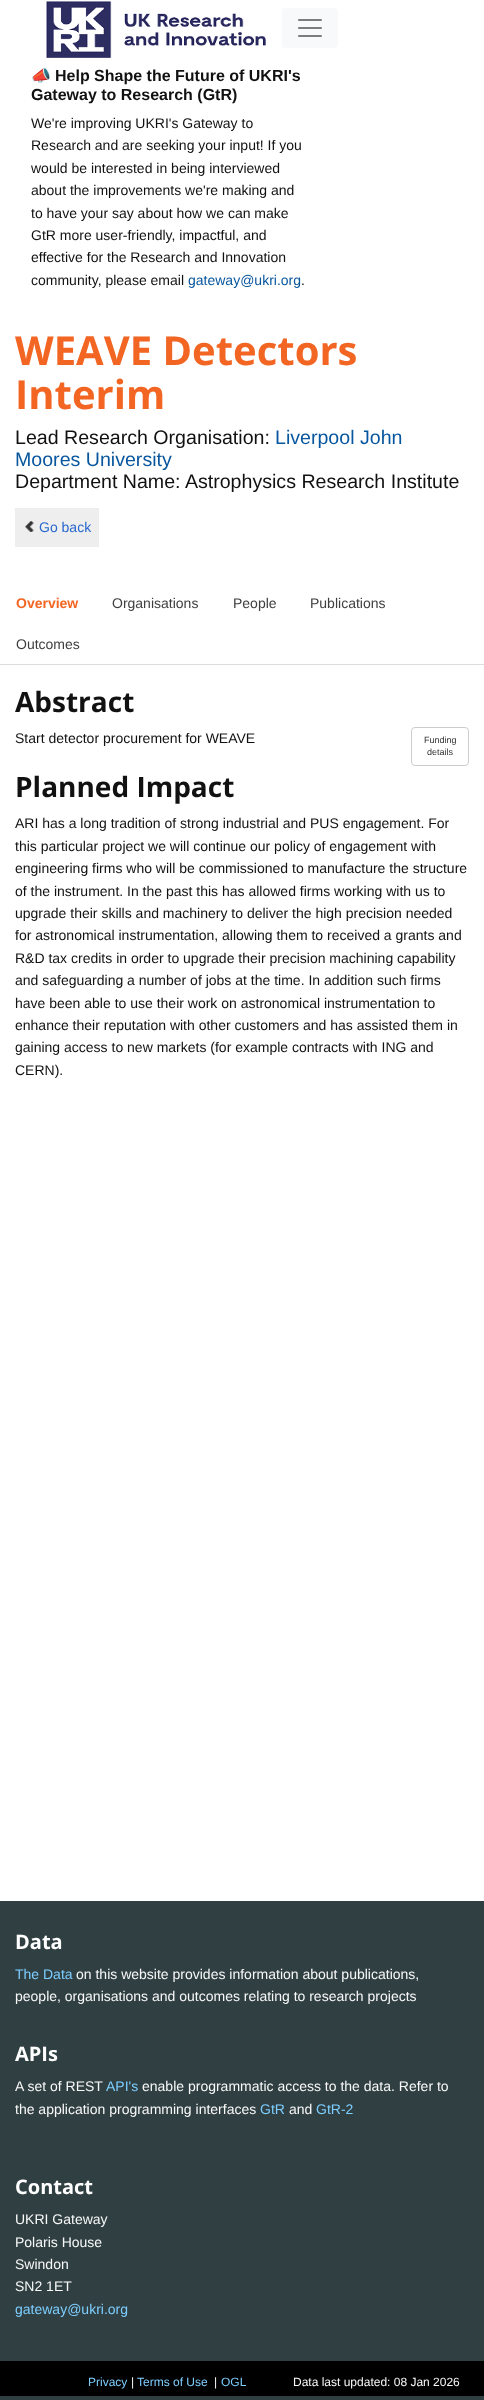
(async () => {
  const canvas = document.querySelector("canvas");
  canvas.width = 484;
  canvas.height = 2400;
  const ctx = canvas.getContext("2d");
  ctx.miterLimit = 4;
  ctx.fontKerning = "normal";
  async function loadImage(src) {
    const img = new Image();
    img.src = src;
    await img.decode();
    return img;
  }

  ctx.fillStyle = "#ffffff";
  ctx.fillRect(0, 0, 484, 2400);
  ctx.drawImage(await loadImage("img/1.png"), 46, 1, 220, 57);
  ctx.fillStyle = "#f8f9fa";
  ctx.beginPath();
  ctx.roundRect(282, 8, 56, 40, 4);
  ctx.fill();
  ctx.drawImage(await loadImage("img/2.png"), 298, 19, 24, 18);
  ctx.fillStyle = "#eeeeee";
  ctx.fillRect(15, 508, 84, 39);
  ctx.drawImage(await loadImage("img/3.png"), 25, 521, 9, 11);
  ctx.fillStyle = "#dddddd";
  ctx.fillRect(0, 664, 484, 1);
  ctx.beginPath();
  ctx.roundRect(411.5, 727.5, 57, 38, 3.5);
  ctx.strokeStyle = "#cccccc";
  ctx.stroke();
  ctx.fillStyle = "#303f42";
  ctx.fillRect(0, 1901, 484, 499);
  ctx.fillStyle = "#000000";
  ctx.fillRect(0, 2361, 484, 35);
  ctx.font = "bold 16px Noto Color Emoji";
  ctx.fillStyle = "#111111";
  ctx.fillText("📣", 31, 81);
  ctx.font = "bold 16px Liberation Sans";
  ctx.fillText("Help Shape the Future of UKRI's", 55, 81);
  ctx.fillText("Gateway to Research (GtR)", 31, 100);
  ctx.font = "14px Liberation Sans";
  for (const [text, x, y] of [
    ["We're improving UKRI's Gateway to", 31, 128],
    ["Research and are seeking your input! If you", 31, 150],
    ["would be interested in being interviewed", 31, 173],
    ["about the improvements we're making and", 31, 195],
    ["to have your say about how we can make", 31, 218],
    ["GtR more user-friendly, impactful, and", 31, 240],
    ["effective for the Research and Innovation", 31, 262],
    ["community, please email", 31, 285],
  ]) {
    ctx.fillText(text, x, y);
  }
  ctx.fillStyle = "#07569e";
  ctx.fillText("gateway@ukri.org", 188, 285);
  ctx.fillStyle = "#111111";
  ctx.fillText(".", 301, 285);
  ctx.font = "bold 40px Open Sans";
  ctx.fillStyle = "#f26522";
  ctx.fillText("WEAVE Detectors", 15, 365);
  ctx.fillText("Interim", 15, 409);
  ctx.font = "19.6px Liberation Sans";
  ctx.fillStyle = "#111111";
  ctx.fillText("Lead Research Organisation:", 15, 444);
  ctx.fillStyle = "#07569e";
  ctx.fillText("Liverpool John", 275, 444);
  ctx.fillText("Moores University", 15, 466);
  ctx.fillStyle = "#111111";
  ctx.fillText("Department Name: Astrophysics Research Institute", 15, 488);
  ctx.font = "14px Liberation Sans";
  ctx.fillStyle = "#2967cd";
  ctx.fillText("Go back", 39, 532);
  ctx.font = "bold 14px Liberation Sans";
  ctx.fillStyle = "#f26522";
  ctx.fillText("Overview", 16, 608);
  ctx.font = "14px Liberation Sans";
  ctx.fillStyle = "#3f3d3d";
  for (const [text, x, y] of [
    ["Organisations", 112, 608],
    ["People", 233, 608],
    ["Publications", 310, 608],
    ["Outcomes", 16, 649],
  ]) {
    ctx.fillText(text, x, y);
  }
  ctx.font = "bold 28px Open Sans";
  ctx.fillStyle = "#111111";
  ctx.fillText("Abstract", 15, 712);
  ctx.font = "14px Liberation Sans";
  ctx.fillText("Start detector procurement for WEAVE", 15, 743);
  ctx.font = "9px Liberation Sans";
  ctx.fillStyle = "#333333";
  ctx.fillText("Funding", 424, 743);
  ctx.fillText("details", 427, 755);
  ctx.font = "bold 28px Open Sans";
  ctx.fillStyle = "#111111";
  ctx.fillText("Planned Impact", 15, 797);
  ctx.font = "14px Liberation Sans";
  for (const [text, x, y] of [
    ["ARI has a long tradition of strong industrial and PUS engagement. For", 15, 828],
    ["this particular project we will continue our policy of engagement with", 15, 851],
    ["engineering firms who will be commissioned to manufacture the structure", 15, 873],
    ["of the instrument. In the past this has allowed firms working with us to", 15, 896],
    ["upgrade their skills and machinery to deliver the high precision needed", 15, 918],
    ["for astronomical instrumentation, allowing them to received a grants and", 15, 940],
    ["R&D tax credits in order to upgrade their precision machining capability", 15, 963],
    ["and safeguarding a number of jobs at the time. In addition such firms", 15, 985],
    ["have been able to use their work on astronomical instrumentation to", 15, 1008],
    ["enhance their reputation with other customers and has assisted them in", 15, 1030],
    ["gaining access to new markets (for example contracts with ING and", 15, 1052],
    ["CERN).", 15, 1075],
  ]) {
    ctx.fillText(text, x, y);
  }
  ctx.font = "bold 20px Open Sans";
  ctx.fillStyle = "#ffffff";
  ctx.fillText("Data", 15, 1949);
  ctx.font = "14px Liberation Sans";
  ctx.fillStyle = "#7dceff";
  ctx.fillText("The Data", 15, 1979);
  ctx.fillStyle = "#f8f8f8";
  ctx.fillText("on this website provides information about publications,", 76, 1979);
  ctx.fillText("people, organisations and outcomes relating to research projects", 15, 2001);
  ctx.font = "bold 20px Open Sans";
  ctx.fillStyle = "#ffffff";
  ctx.fillText("APIs", 15, 2061);
  ctx.font = "14px Liberation Sans";
  ctx.fillStyle = "#f8f8f8";
  ctx.fillText("A set of REST", 15, 2091);
  ctx.fillStyle = "#7dceff";
  ctx.fillText("API's", 106, 2091);
  ctx.fillStyle = "#f8f8f8";
  ctx.fillText("enable programmatic access to the data. Refer to", 142, 2091);
  ctx.fillText("the application programming interfaces", 15, 2114);
  ctx.fillStyle = "#7dceff";
  ctx.fillText("GtR", 260, 2114);
  ctx.fillStyle = "#f8f8f8";
  ctx.fillText("and", 289, 2114);
  ctx.fillStyle = "#7dceff";
  ctx.fillText("GtR-2", 316, 2114);
  ctx.font = "bold 20px Open Sans";
  ctx.fillStyle = "#ffffff";
  ctx.fillText("Contact", 15, 2194);
  ctx.font = "14px Liberation Sans";
  ctx.fillStyle = "#f8f8f8";
  for (const [text, x, y] of [
    ["UKRI Gateway", 15, 2224],
    ["Polaris House", 15, 2247],
    ["Swindon", 15, 2269],
    ["SN2 1ET", 15, 2291],
  ]) {
    ctx.fillText(text, x, y);
  }
  ctx.fillStyle = "#7dceff";
  ctx.fillText("gateway@ukri.org", 15, 2314);
  ctx.font = "12px Liberation Sans";
  ctx.fillText("Privacy", 88, 2386);
  ctx.fillStyle = "#f8f8f8";
  ctx.fillText("|", 131, 2386);
  ctx.fillStyle = "#7dceff";
  ctx.fillText("Terms of Use", 137, 2386);
  ctx.fillStyle = "#f8f8f8";
  ctx.fillText("|", 214, 2386);
  ctx.fillStyle = "#7dceff";
  ctx.fillText("OGL", 221, 2386);
  ctx.fillStyle = "#f8f8f8";
  ctx.fillText("Data last updated: 08 Jan 2026", 293, 2386);
})();
